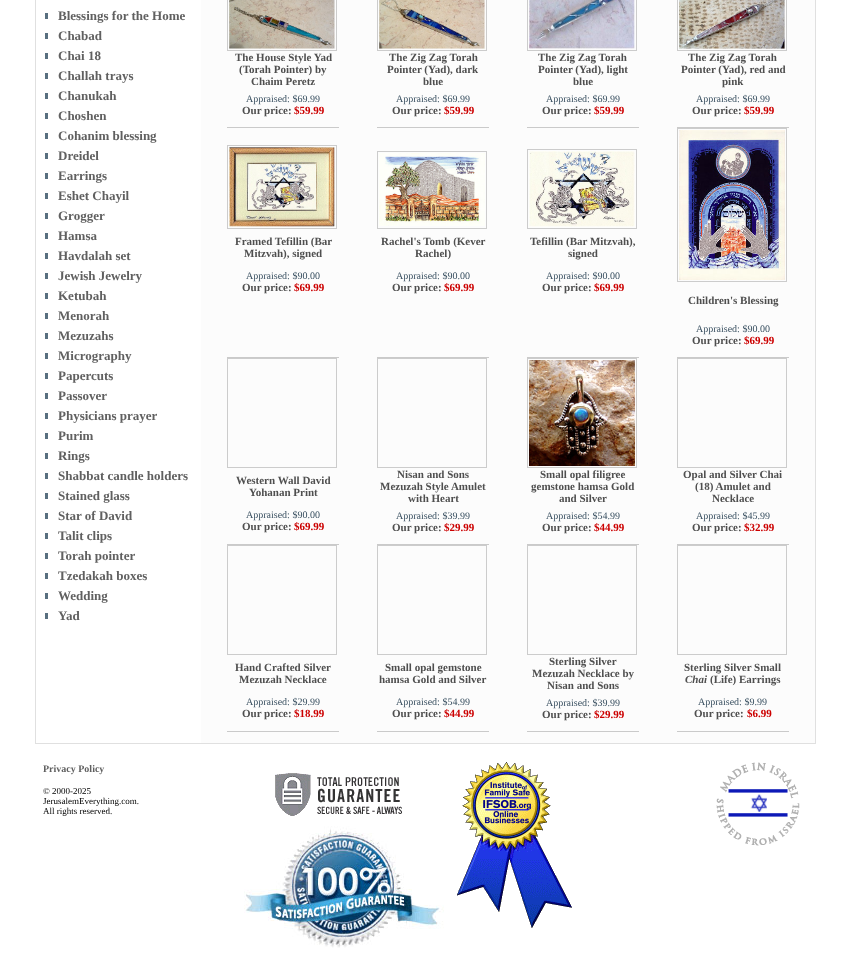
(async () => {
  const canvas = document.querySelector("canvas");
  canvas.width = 851;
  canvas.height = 953;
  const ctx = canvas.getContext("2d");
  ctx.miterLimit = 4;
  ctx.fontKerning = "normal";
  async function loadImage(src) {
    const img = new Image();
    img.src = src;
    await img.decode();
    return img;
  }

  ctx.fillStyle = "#ffffff";
  ctx.fillRect(0, 0, 851, 953);
  ctx.strokeStyle = "#e0e0e0";
  ctx.strokeRect(35.5, -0.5, 780, 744);
  for (const [x, y, w, h, color] of [
    [45, 13, 3, 6, "#586f7f"],
    [45, 33, 3, 6, "#586f7f"],
    [45, 53, 3, 6, "#586f7f"],
    [45, 73, 3, 6, "#586f7f"],
    [45, 93, 3, 6, "#586f7f"],
    [45, 113, 3, 6, "#586f7f"],
    [45, 133, 3, 6, "#586f7f"],
    [45, 153, 3, 6, "#586f7f"],
    [45, 173, 3, 6, "#586f7f"],
    [45, 193, 3, 6, "#586f7f"],
    [45, 213, 3, 6, "#586f7f"],
    [45, 233, 3, 6, "#586f7f"],
    [45, 253, 3, 6, "#586f7f"],
    [45, 273, 3, 6, "#586f7f"],
    [45, 293, 3, 6, "#586f7f"],
    [45, 313, 3, 6, "#586f7f"],
    [45, 333, 3, 6, "#586f7f"],
    [45, 353, 3, 6, "#586f7f"],
    [45, 373, 3, 6, "#586f7f"],
    [45, 393, 3, 6, "#586f7f"],
    [45, 413, 3, 6, "#586f7f"],
    [45, 433, 3, 6, "#586f7f"],
    [45, 453, 3, 6, "#586f7f"],
    [45, 473, 3, 6, "#586f7f"],
    [45, 493, 3, 6, "#586f7f"],
    [45, 513, 3, 6, "#586f7f"],
    [45, 533, 3, 6, "#586f7f"],
    [45, 553, 3, 6, "#586f7f"],
    [45, 573, 3, 6, "#586f7f"],
    [45, 593, 3, 6, "#586f7f"],
    [45, 613, 3, 6, "#586f7f"],
    [201, 0, 614, 743, "#fcfcfc"],
  ]) {
    ctx.fillStyle = color;
    ctx.fillRect(x, y, w, h);
  }
  ctx.strokeStyle = "#cccccc";
  ctx.strokeRect(227.5, -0.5, 109, 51);
  ctx.drawImage(await loadImage("img/1.png"), 229, 0, 106, 49);
  ctx.strokeRect(377.5, -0.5, 109, 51);
  ctx.drawImage(await loadImage("img/2.png"), 379, 0, 106, 49);
  ctx.strokeRect(527.5, -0.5, 109, 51);
  ctx.drawImage(await loadImage("img/3.png"), 529, 0, 106, 49);
  ctx.strokeRect(677.5, -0.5, 109, 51);
  ctx.drawImage(await loadImage("img/4.png"), 679, 0, 106, 49);
  for (const [x, y, w, h, color] of [
    [227, 127, 112, 1, "#cacaca"],
    [377, 127, 112, 1, "#cacaca"],
    [527, 127, 112, 1, "#cacaca"],
    [677, 127, 112, 1, "#cacaca"],
  ]) {
    ctx.fillStyle = color;
    ctx.fillRect(x, y, w, h);
  }
  ctx.strokeRect(227.5, 145.5, 109, 83);
  ctx.drawImage(await loadImage("img/5.png"), 229, 147, 106, 80);
  ctx.strokeRect(377.5, 151.5, 109, 77);
  ctx.drawImage(await loadImage("img/6.png"), 379, 153, 106, 73);
  ctx.strokeRect(527.5, 149.5, 109, 79);
  ctx.drawImage(await loadImage("img/7.png"), 529, 151, 106, 76);
  ctx.strokeRect(677.5, 128.5, 109, 153);
  ctx.drawImage(await loadImage("img/8.png"), 679, 130, 106, 150);
  for (const [x, y, w, h, color] of [
    [227, 357, 112, 1, "#cacaca"],
    [377, 357, 112, 1, "#cacaca"],
    [527, 357, 112, 1, "#cacaca"],
    [677, 357, 112, 1, "#cacaca"],
  ]) {
    ctx.fillStyle = color;
    ctx.fillRect(x, y, w, h);
  }
  ctx.strokeRect(227.5, 358.5, 109, 109);
  ctx.strokeRect(377.5, 358.5, 109, 109);
  ctx.strokeRect(527.5, 358.5, 109, 109);
  ctx.drawImage(await loadImage("img/9.png"), 529, 360, 106, 106);
  ctx.strokeRect(677.5, 358.5, 109, 109);
  for (const [x, y, w, h, color] of [
    [227, 544, 112, 1, "#cacaca"],
    [377, 544, 112, 1, "#cacaca"],
    [527, 544, 112, 1, "#cacaca"],
    [677, 544, 112, 1, "#cacaca"],
  ]) {
    ctx.fillStyle = color;
    ctx.fillRect(x, y, w, h);
  }
  ctx.strokeRect(227.5, 545.5, 109, 109);
  ctx.strokeRect(377.5, 545.5, 109, 109);
  ctx.strokeRect(527.5, 545.5, 109, 109);
  ctx.strokeRect(677.5, 545.5, 109, 109);
  for (const [x, y, w, h, color] of [
    [227, 731, 112, 1, "#cacaca"],
    [377, 731, 112, 1, "#cacaca"],
    [527, 731, 112, 1, "#cacaca"],
    [677, 731, 112, 1, "#cacaca"],
  ]) {
    ctx.fillStyle = color;
    ctx.fillRect(x, y, w, h);
  }
  ctx.drawImage(await loadImage("img/10.png"), 275, 773, 127, 43);
  ctx.drawImage(await loadImage("img/11.png"), 457, 762, 115, 166);
  ctx.drawImage(await loadImage("img/12.png"), 716, 762, 84, 84);
  ctx.drawImage(await loadImage("img/13.png"), 244, 826, 200, 122);
  ctx.font = "bold 13px Liberation Serif";
  ctx.fillStyle = "#606060";
  for (const [text, x, y] of [
    ["Blessings for the Home", 58, 20],
    ["Chabad", 58, 40],
    ["Chai 18", 58, 60],
    ["Challah trays", 58, 80],
    ["Chanukah", 58, 100],
    ["Choshen", 58, 120],
    ["Cohanim blessing", 58, 140],
    ["Dreidel", 58, 160],
    ["Earrings", 58, 180],
    ["Eshet Chayil", 58, 200],
    ["Grogger", 58, 220],
    ["Hamsa", 58, 240],
    ["Havdalah set", 58, 260],
    ["Jewish Jewelry", 58, 280],
    ["Ketubah", 58, 300],
    ["Menorah", 58, 320],
    ["Mezuzahs", 58, 340],
    ["Micrography", 58, 360],
    ["Papercuts", 58, 380],
    ["Passover", 58, 400],
    ["Physicians prayer", 58, 420],
    ["Purim", 58, 440],
    ["Rings", 58, 460],
    ["Shabbat candle holders", 58, 480],
    ["Stained glass", 58, 500],
    ["Star of David", 58, 520],
    ["Talit clips", 58, 540],
    ["Torah pointer", 58, 560],
    ["Tzedakah boxes", 58, 580],
    ["Wedding", 58, 600],
    ["Yad", 58, 620],
  ]) {
    ctx.fillText(text, x, y);
  }
  ctx.font = "bold 11px Liberation Serif";
  ctx.fillStyle = "#4f4f4f";
  for (const [text, x, y] of [
    ["The House Style Yad", 235, 61],
    ["(Torah Pointer) by", 239, 73],
    ["Chaim Peretz", 251, 85],
  ]) {
    ctx.fillText(text, x, y);
  }
  ctx.font = "10px Liberation Serif";
  ctx.fillStyle = "#374e5f";
  ctx.fillText("Appraised: $69.99", 246, 102);
  ctx.font = "bold 11px Liberation Serif";
  ctx.fillStyle = "#4f4f4f";
  ctx.fillText("Our price:", 242, 114);
  ctx.fillStyle = "#cc0000";
  ctx.fillText("$59.99", 294, 114);
  ctx.fillStyle = "#4f4f4f";
  for (const [text, x, y] of [
    ["The Zig Zag Torah", 389, 61],
    ["Pointer (Yad), dark", 387, 73],
    ["blue", 423, 85],
  ]) {
    ctx.fillText(text, x, y);
  }
  ctx.font = "10px Liberation Serif";
  ctx.fillStyle = "#374e5f";
  ctx.fillText("Appraised: $69.99", 396, 102);
  ctx.font = "bold 11px Liberation Serif";
  ctx.fillStyle = "#4f4f4f";
  ctx.fillText("Our price:", 392, 114);
  ctx.fillStyle = "#cc0000";
  ctx.fillText("$59.99", 444, 114);
  ctx.fillStyle = "#4f4f4f";
  for (const [text, x, y] of [
    ["The Zig Zag Torah", 538, 61],
    ["Pointer (Yad), light", 538, 73],
    ["blue", 573, 85],
  ]) {
    ctx.fillText(text, x, y);
  }
  ctx.font = "10px Liberation Serif";
  ctx.fillStyle = "#374e5f";
  ctx.fillText("Appraised: $69.99", 546, 102);
  ctx.font = "bold 11px Liberation Serif";
  ctx.fillStyle = "#4f4f4f";
  ctx.fillText("Our price:", 542, 114);
  ctx.fillStyle = "#cc0000";
  ctx.fillText("$59.99", 594, 114);
  ctx.fillStyle = "#4f4f4f";
  for (const [text, x, y] of [
    ["The Zig Zag Torah", 688, 61],
    ["Pointer (Yad), red and", 681, 73],
    ["pink", 722, 85],
  ]) {
    ctx.fillText(text, x, y);
  }
  ctx.font = "10px Liberation Serif";
  ctx.fillStyle = "#374e5f";
  ctx.fillText("Appraised: $69.99", 696, 102);
  ctx.font = "bold 11px Liberation Serif";
  ctx.fillStyle = "#4f4f4f";
  ctx.fillText("Our price:", 692, 114);
  ctx.fillStyle = "#cc0000";
  ctx.fillText("$59.99", 744, 114);
  ctx.fillStyle = "#4f4f4f";
  ctx.fillText("Framed Tefillin (Bar", 235, 245);
  ctx.fillText("Mitzvah), signed", 244, 257);
  ctx.font = "10px Liberation Serif";
  ctx.fillStyle = "#374e5f";
  ctx.fillText("Appraised: $90.00", 246, 279);
  ctx.font = "bold 11px Liberation Serif";
  ctx.fillStyle = "#4f4f4f";
  ctx.fillText("Our price:", 242, 291);
  ctx.fillStyle = "#cc0000";
  ctx.fillText("$69.99", 294, 291);
  ctx.fillStyle = "#4f4f4f";
  ctx.fillText("Rachel's Tomb (Kever", 381, 245);
  ctx.fillText("Rachel)", 415, 257);
  ctx.font = "10px Liberation Serif";
  ctx.fillStyle = "#374e5f";
  ctx.fillText("Appraised: $90.00", 396, 279);
  ctx.font = "bold 11px Liberation Serif";
  ctx.fillStyle = "#4f4f4f";
  ctx.fillText("Our price:", 392, 291);
  ctx.fillStyle = "#cc0000";
  ctx.fillText("$69.99", 444, 291);
  ctx.fillStyle = "#4f4f4f";
  ctx.fillText("Tefillin (Bar Mitzvah),", 530, 245);
  ctx.fillText("signed", 568, 257);
  ctx.font = "10px Liberation Serif";
  ctx.fillStyle = "#374e5f";
  ctx.fillText("Appraised: $90.00", 546, 279);
  ctx.font = "bold 11px Liberation Serif";
  ctx.fillStyle = "#4f4f4f";
  ctx.fillText("Our price:", 542, 291);
  ctx.fillStyle = "#cc0000";
  ctx.fillText("$69.99", 594, 291);
  ctx.fillStyle = "#4f4f4f";
  ctx.fillText("Children's Blessing", 688, 304);
  ctx.font = "10px Liberation Serif";
  ctx.fillStyle = "#374e5f";
  ctx.fillText("Appraised: $90.00", 696, 332);
  ctx.font = "bold 11px Liberation Serif";
  ctx.fillStyle = "#4f4f4f";
  ctx.fillText("Our price:", 692, 344);
  ctx.fillStyle = "#cc0000";
  ctx.fillText("$69.99", 744, 344);
  ctx.fillStyle = "#4f4f4f";
  ctx.fillText("Western Wall David", 236, 484);
  ctx.fillText("Yohanan Print", 249, 496);
  ctx.font = "10px Liberation Serif";
  ctx.fillStyle = "#374e5f";
  ctx.fillText("Appraised: $90.00", 246, 518);
  ctx.font = "bold 11px Liberation Serif";
  ctx.fillStyle = "#4f4f4f";
  ctx.fillText("Our price:", 242, 530);
  ctx.fillStyle = "#cc0000";
  ctx.fillText("$69.99", 294, 530);
  ctx.fillStyle = "#4f4f4f";
  for (const [text, x, y] of [
    ["Nisan and Sons", 397, 478],
    ["Mezuzah Style Amulet", 380, 490],
    ["with Heart", 408, 502],
  ]) {
    ctx.fillText(text, x, y);
  }
  ctx.font = "10px Liberation Serif";
  ctx.fillStyle = "#374e5f";
  ctx.fillText("Appraised: $39.99", 396, 519);
  ctx.font = "bold 11px Liberation Serif";
  ctx.fillStyle = "#4f4f4f";
  ctx.fillText("Our price:", 392, 531);
  ctx.fillStyle = "#cc0000";
  ctx.fillText("$29.99", 444, 531);
  ctx.fillStyle = "#4f4f4f";
  for (const [text, x, y] of [
    ["Small opal filigree", 540, 478],
    ["gemstone hamsa Gold", 531, 490],
    ["and Silver", 559, 502],
  ]) {
    ctx.fillText(text, x, y);
  }
  ctx.font = "10px Liberation Serif";
  ctx.fillStyle = "#374e5f";
  ctx.fillText("Appraised: $54.99", 546, 519);
  ctx.font = "bold 11px Liberation Serif";
  ctx.fillStyle = "#4f4f4f";
  ctx.fillText("Our price:", 542, 531);
  ctx.fillStyle = "#cc0000";
  ctx.fillText("$44.99", 594, 531);
  ctx.fillStyle = "#4f4f4f";
  for (const [text, x, y] of [
    ["Opal and Silver Chai", 683, 478],
    ["(18) Amulet and", 695, 490],
    ["Necklace", 712, 502],
  ]) {
    ctx.fillText(text, x, y);
  }
  ctx.font = "10px Liberation Serif";
  ctx.fillStyle = "#374e5f";
  ctx.fillText("Appraised: $45.99", 696, 519);
  ctx.font = "bold 11px Liberation Serif";
  ctx.fillStyle = "#4f4f4f";
  ctx.fillText("Our price:", 692, 531);
  ctx.fillStyle = "#cc0000";
  ctx.fillText("$32.99", 744, 531);
  ctx.fillStyle = "#4f4f4f";
  ctx.fillText("Hand Crafted Silver", 235, 671);
  ctx.fillText("Mezuzah Necklace", 239, 683);
  ctx.font = "10px Liberation Serif";
  ctx.fillStyle = "#374e5f";
  ctx.fillText("Appraised: $29.99", 246, 705);
  ctx.font = "bold 11px Liberation Serif";
  ctx.fillStyle = "#4f4f4f";
  ctx.fillText("Our price:", 242, 717);
  ctx.fillStyle = "#cc0000";
  ctx.fillText("$18.99", 294, 717);
  ctx.fillStyle = "#4f4f4f";
  ctx.fillText("Small opal gemstone", 385, 671);
  ctx.fillText("hamsa Gold and Silver", 379, 683);
  ctx.font = "10px Liberation Serif";
  ctx.fillStyle = "#374e5f";
  ctx.fillText("Appraised: $54.99", 396, 705);
  ctx.font = "bold 11px Liberation Serif";
  ctx.fillStyle = "#4f4f4f";
  ctx.fillText("Our price:", 392, 717);
  ctx.fillStyle = "#cc0000";
  ctx.fillText("$44.99", 444, 717);
  ctx.fillStyle = "#4f4f4f";
  for (const [text, x, y] of [
    ["Sterling Silver", 549, 665],
    ["Mezuzah Necklace by", 532, 677],
    ["Nisan and Sons", 547, 689],
  ]) {
    ctx.fillText(text, x, y);
  }
  ctx.font = "10px Liberation Serif";
  ctx.fillStyle = "#374e5f";
  ctx.fillText("Appraised: $39.99", 546, 706);
  ctx.font = "bold 11px Liberation Serif";
  ctx.fillStyle = "#4f4f4f";
  ctx.fillText("Our price:", 542, 718);
  ctx.fillStyle = "#cc0000";
  ctx.fillText("$29.99", 594, 718);
  ctx.fillStyle = "#4f4f4f";
  ctx.fillText("Sterling Silver Small", 684, 671);
  ctx.font = "italic bold 11px Liberation Serif";
  ctx.fillText("Chai", 685, 683);
  ctx.font = "bold 11px Liberation Serif";
  ctx.fillText("(Life) Earrings", 710, 683);
  ctx.font = "10px Liberation Serif";
  ctx.fillStyle = "#374e5f";
  ctx.fillText("Appraised: $9.99", 698, 705);
  ctx.font = "bold 11px Liberation Serif";
  ctx.fillStyle = "#4f4f4f";
  ctx.fillText("Our price:", 694, 717);
  ctx.fillStyle = "#cc0000";
  ctx.fillText("$6.99", 747, 717);
  ctx.font = "bold 10px Liberation Serif";
  ctx.fillStyle = "#606060";
  ctx.fillText("Privacy Policy", 43, 772);
  ctx.font = "9px Liberation Serif";
  ctx.fillStyle = "#000000";
  for (const [text, x, y] of [
    ["© 2000-2025", 43, 794],
    ["JerusalemEverything.com.", 43, 804],
    ["All rights reserved.", 43, 814],
  ]) {
    ctx.fillText(text, x, y);
  }
})();
